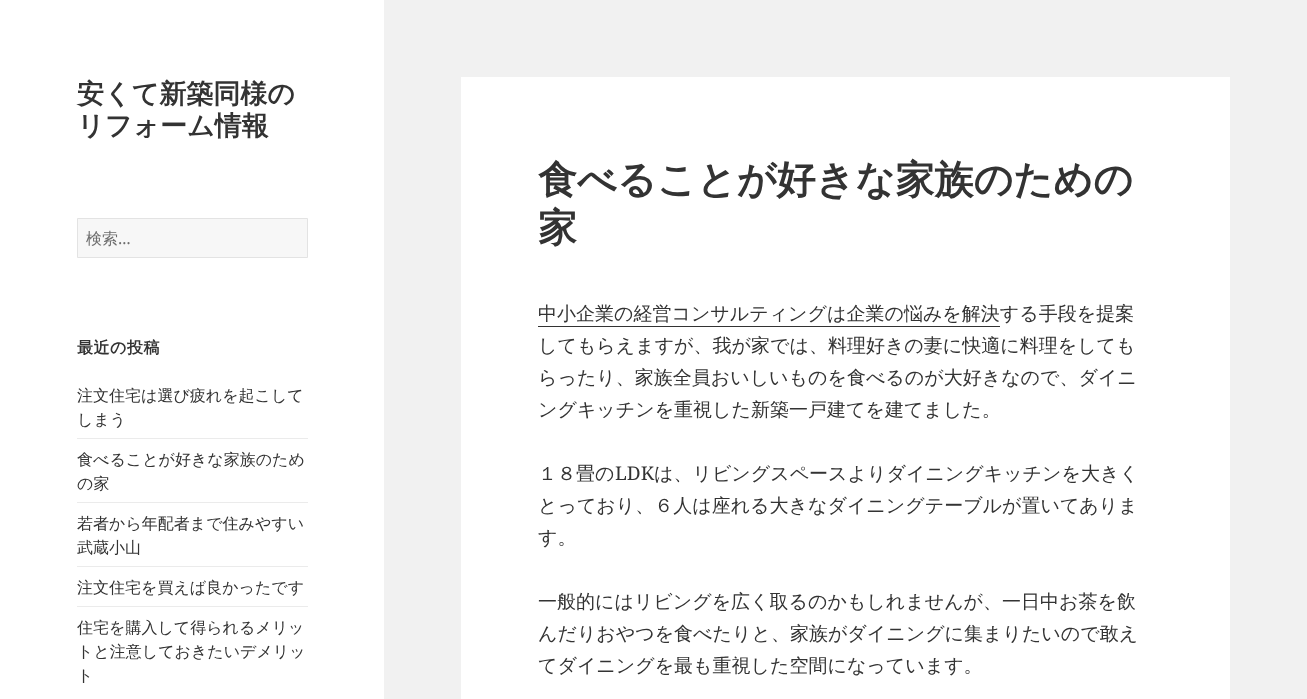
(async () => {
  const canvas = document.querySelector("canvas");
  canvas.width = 1307;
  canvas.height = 699;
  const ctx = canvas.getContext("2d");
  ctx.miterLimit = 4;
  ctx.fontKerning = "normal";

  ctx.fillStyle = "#f1f1f1";
  ctx.fillRect(0, 0, 1307, 699);
  ctx.fillStyle = "#ffffff";
  ctx.fillRect(0, 0, 384, 699);
  ctx.fillStyle = "#f7f7f7";
  ctx.beginPath();
  ctx.rect(77.5, 218.5, 230, 39);
  ctx.fill();
  ctx.strokeStyle = "#e3e3e3";
  ctx.stroke();
  for (const [x, y, w, h, color] of [
    [77, 438, 231, 1, "#ebebeb"],
    [77, 502, 231, 1, "#ebebeb"],
    [77, 566, 231, 1, "#ebebeb"],
    [77, 606, 231, 1, "#ebebeb"],
    [461, 77, 769, 622, "#ffffff"],
    [538, 326, 462, 1, "#333333"],
  ]) {
    ctx.fillStyle = color;
    ctx.fillRect(x, y, w, h);
  }
  ctx.font = "bold 27px WenQuanYi Zen Hei";
  ctx.fillText("安くて新築同様の", 77, 103);
  ctx.fillText("リフォーム情報", 77, 135);
  ctx.font = "500 16px WenQuanYi Zen Hei";
  ctx.fillStyle = "#6e6e6e";
  ctx.fillText("検索", 86, 244);
  ctx.font = "16px Noto Sans";
  ctx.fillText("…", 118, 244);
  ctx.letterSpacing = "0.5px";
  ctx.font = "bold 16px WenQuanYi Zen Hei";
  ctx.fillStyle = "#333333";
  ctx.fillText("最近の投稿", 77, 353);
  ctx.letterSpacing = "0px";
  ctx.font = "500 16px WenQuanYi Zen Hei";
  for (const [text, x, y] of [
    ["注文住宅は選び疲れを起こして", 77, 401],
    ["しまう", 77, 425],
    ["食べることが好きな家族のため", 77, 465],
    ["の家", 77, 489],
    ["若者から年配者まで住みやすい", 77, 529],
    ["武蔵小山", 77, 553],
    ["注文住宅を買えば良かったです", 77, 593],
    ["住宅を購入して得られるメリッ", 77, 633],
    ["トと注意しておきたいデメリッ", 77, 657],
    ["ト", 77, 681],
  ]) {
    ctx.fillText(text, x, y);
  }
  ctx.font = "bold 39px WenQuanYi Zen Hei";
  ctx.fillText("食べることが好きな家族のための", 538, 193);
  ctx.fillText("家", 538, 241);
  ctx.font = "500 19px WenQuanYi Zen Hei";
  for (const [text, x, y] of [
    ["中小企業の経営コンサルティングは企業の悩みを解決する手段を提案", 538, 320],
    ["してもらえますが、我が家では、料理好きの妻に快適に料理をしても", 538, 352],
    ["らったり、家族全員おいしいものを食べるのが大好きなので、ダイニ", 538, 384],
    ["ングキッチンを重視した新築一戸建てを建てました。", 538, 416],
    ["１８畳の", 538, 480],
  ]) {
    ctx.fillText(text, x, y);
  }
  ctx.font = "19px Noto Serif";
  ctx.fillText("LDK", 615, 480);
  ctx.font = "500 19px WenQuanYi Zen Hei";
  for (const [text, x, y] of [
    ["は、リビングスペースよりダイニングキッチンを大きく", 654, 480],
    ["とっており、６人は座れる大きなダイニングテーブルが置いてありま", 538, 512],
    ["す。", 538, 544],
    ["一般的にはリビングを広く取るのかもしれませんが、一日中お茶を飲", 538, 608],
    ["んだりおやつを食べたりと、家族がダイニングに集まりたいので敢え", 538, 640],
    ["てダイニングを最も重視した空間になっています。", 538, 672],
  ]) {
    ctx.fillText(text, x, y);
  }
})();
